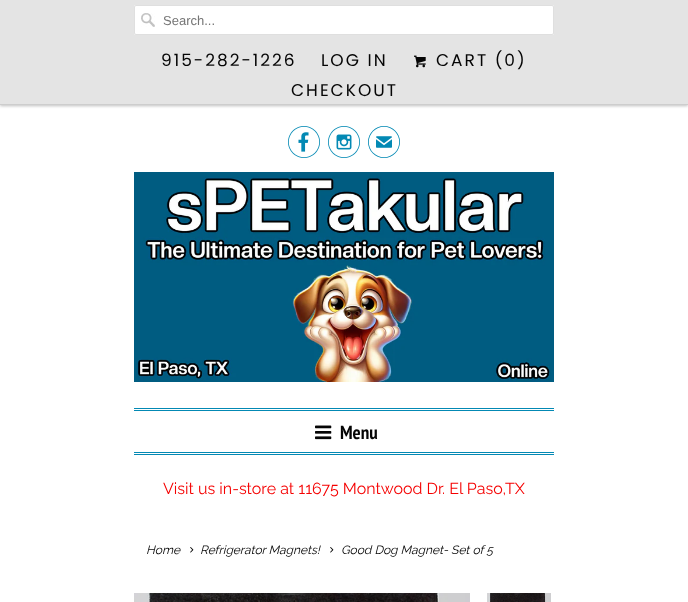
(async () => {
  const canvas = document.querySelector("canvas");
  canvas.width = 688;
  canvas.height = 602;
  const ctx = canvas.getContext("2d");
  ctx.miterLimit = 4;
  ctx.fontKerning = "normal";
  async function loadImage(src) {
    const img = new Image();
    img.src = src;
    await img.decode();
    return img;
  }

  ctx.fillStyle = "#ffffff";
  ctx.fillRect(0, 0, 688, 602);
  ctx.fillStyle = "rgba(0, 0, 0, 0.25)";
  ctx.filter = "blur(1.5px)";
  ctx.beginPath();
  ctx.rect(0, 1, 688, 105);
  ctx.fill();
  ctx.filter = "none";
  ctx.fillStyle = "#e4e4e4";
  ctx.fillRect(0, 0, 688, 104);
  ctx.fillStyle = "#cdcdcd";
  ctx.fillRect(0, 104, 688, 1);
  ctx.fillStyle = "#ffffff";
  ctx.beginPath();
  ctx.roundRect(134, 5, 420, 30, 2);
  ctx.fill();
  ctx.drawImage(await loadImage("img/1.png"), 141, 13, 14, 14);
  ctx.beginPath();
  ctx.roundRect(134.5, 5.5, 419, 29, 1.5);
  ctx.strokeStyle = "#dfdfdf";
  ctx.stroke();
  ctx.drawImage(await loadImage("img/2.png"), 414, 55, 12, 13);
  ctx.drawImage(await loadImage("img/3.png"), 288, 126, 32, 32);
  ctx.drawImage(await loadImage("img/4.png"), 328, 126, 32, 32);
  ctx.drawImage(await loadImage("img/5.png"), 134, 172, 420, 210);
  for (const [x, y, w, h, color] of [
    [134, 408, 420, 1, "#0389b4"],
    [134, 410, 420, 1, "#0389b4"],
    [134, 452, 420, 1, "#0389b4"],
    [134, 454, 420, 1, "#0389b4"],
  ]) {
    ctx.fillStyle = color;
    ctx.fillRect(x, y, w, h);
  }
  ctx.drawImage(await loadImage("img/6.png"), 315, 425, 17, 15);
  ctx.drawImage(await loadImage("img/7.png"), 190, 547, 4, 6);
  ctx.drawImage(await loadImage("img/7.png"), 330, 547, 4, 6);
  ctx.drawImage(await loadImage("img/8.png"), 134, 593, 336, 9);
  ctx.drawImage(await loadImage("img/9.png"), 487, 593, 64, 9);
  ctx.font = "13px Liberation Sans";
  ctx.fillStyle = "#757575";
  ctx.fillText("Search...", 163, 25);
  ctx.letterSpacing = "2px";
  ctx.font = "17px Poppins";
  ctx.fillStyle = "#050505";
  for (const [text, x, y] of [
    ["915-282-1226", 161, 66],
    ["LOG IN", 321, 66],
    ["CART (0)", 436, 66],
    ["CHECKOUT", 291, 96],
  ]) {
    ctx.fillText(text, x, y);
  }
  ctx.letterSpacing = "0px";
  ctx.font = "32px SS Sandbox";
  ctx.fillStyle = "#0389b4";
  ctx.fillText("✉", 368, 158);
  ctx.font = "bold 19px PT Sans Narrow";
  ctx.fillStyle = "#050505";
  ctx.fillText("Menu", 340, 439);
  ctx.font = "16px Raleway";
  ctx.fillStyle = "#f50101";
  ctx.fillText("Visit us in-store at 11675 Montwood Dr. El Paso,TX", 163, 494);
  ctx.font = "italic 12px Raleway";
  ctx.fillStyle = "#050505";
  for (const [text, x, y] of [
    ["Home", 146, 554],
    ["Refrigerator Magnets!", 200, 554],
    ["Good Dog Magnet- Set of 5", 341, 554],
  ]) {
    ctx.fillText(text, x, y);
  }
})();
